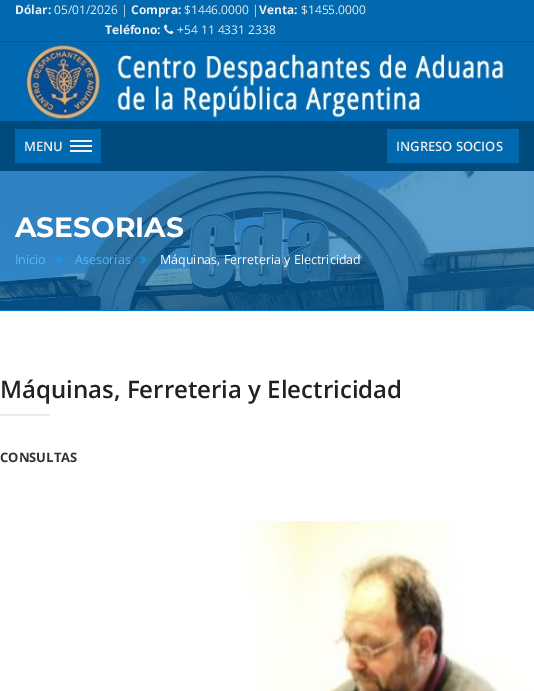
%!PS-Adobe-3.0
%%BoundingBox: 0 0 534 691
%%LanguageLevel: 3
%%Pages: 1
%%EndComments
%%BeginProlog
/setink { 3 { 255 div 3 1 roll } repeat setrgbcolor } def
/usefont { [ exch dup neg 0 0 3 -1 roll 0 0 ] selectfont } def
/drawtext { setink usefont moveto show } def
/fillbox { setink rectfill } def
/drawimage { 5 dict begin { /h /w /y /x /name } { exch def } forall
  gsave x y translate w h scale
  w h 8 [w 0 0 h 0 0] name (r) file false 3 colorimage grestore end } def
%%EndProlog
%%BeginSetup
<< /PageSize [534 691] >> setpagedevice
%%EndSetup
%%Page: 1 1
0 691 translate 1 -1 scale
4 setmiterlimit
0 0 534 691 255 255 255 fillbox
0 0 534 121 0 105 176 fillbox
0 41 534 1 0 90 151 fillbox
(Dólar:) 15 14 /OpenSans-Bold 12 238 238 238 drawtext
(05/01/2026 |) 54 14 /OpenSans-Regular 12 238 238 238 drawtext
(Compra:) 131 14 /OpenSans-Bold 12 238 238 238 drawtext
($1446.0000 |) 184 14 /OpenSans-Regular 12 238 238 238 drawtext
(Venta:) 259 14 /OpenSans-Bold 12 238 238 238 drawtext
($1455.0000) 301 14 /OpenSans-Regular 12 238 238 238 drawtext
(Teléfono:) 105 34 /OpenSans-Bold 12 238 238 238 drawtext
(assets/img1.rgb) 164 24 10 10 drawimage
(+54 11 4331 2338) 177 34 /OpenSans-Regular 12 238 238 238 drawtext
(assets/img2.rgb) 15 42 490 79 drawimage
0 121 534 50 0 75 125 fillbox
15 129 86 34 0 105 176 fillbox
(MENU) 24 151 /OpenSans-SemiBold 13 238 238 238 drawtext
70 140 22 2 241 241 241 fillbox
70 145 22 2 241 241 241 fillbox
70 150 22 2 241 241 241 fillbox
387 129 132 34 0 105 176 fillbox
(INGRESO SOCIOS) 396 151 /OpenSans-SemiBold 13 238 238 238 drawtext
(assets/img3.rgb) 0 171 534 139 drawimage
0 310 534 1 0 120 202 fillbox
(ASESORIAS) 15 237 /Montserrat-Bold 28 255 255 255 drawtext
(Inicio) 15 264 /OpenSans-Regular 12.5 84 186 255 drawtext
(assets/img4.rgb) 55 256 7 8 drawimage
(Asesorias) 75 264 /OpenSans-Regular 12.5 84 186 255 drawtext
(assets/img5.rgb) 140 256 7 8 drawimage
(Máquinas, Ferreteria y Electricidad) 160 264 /OpenSans-Regular 12.5 255 255 255 drawtext
0 311 534 1 240 240 240 fillbox
(Máquinas, Ferreteria y Electricidad) 0 398 /OpenSans-SemiBold 24 34 34 34 drawtext
0 414 50 2 234 234 234 fillbox
(CONSULTAS) 0 462 /OpenSans-Bold 13 50 50 50 drawtext
(assets/img6.rgb) 0 521 534 170 drawimage
showpage
%%EOF
